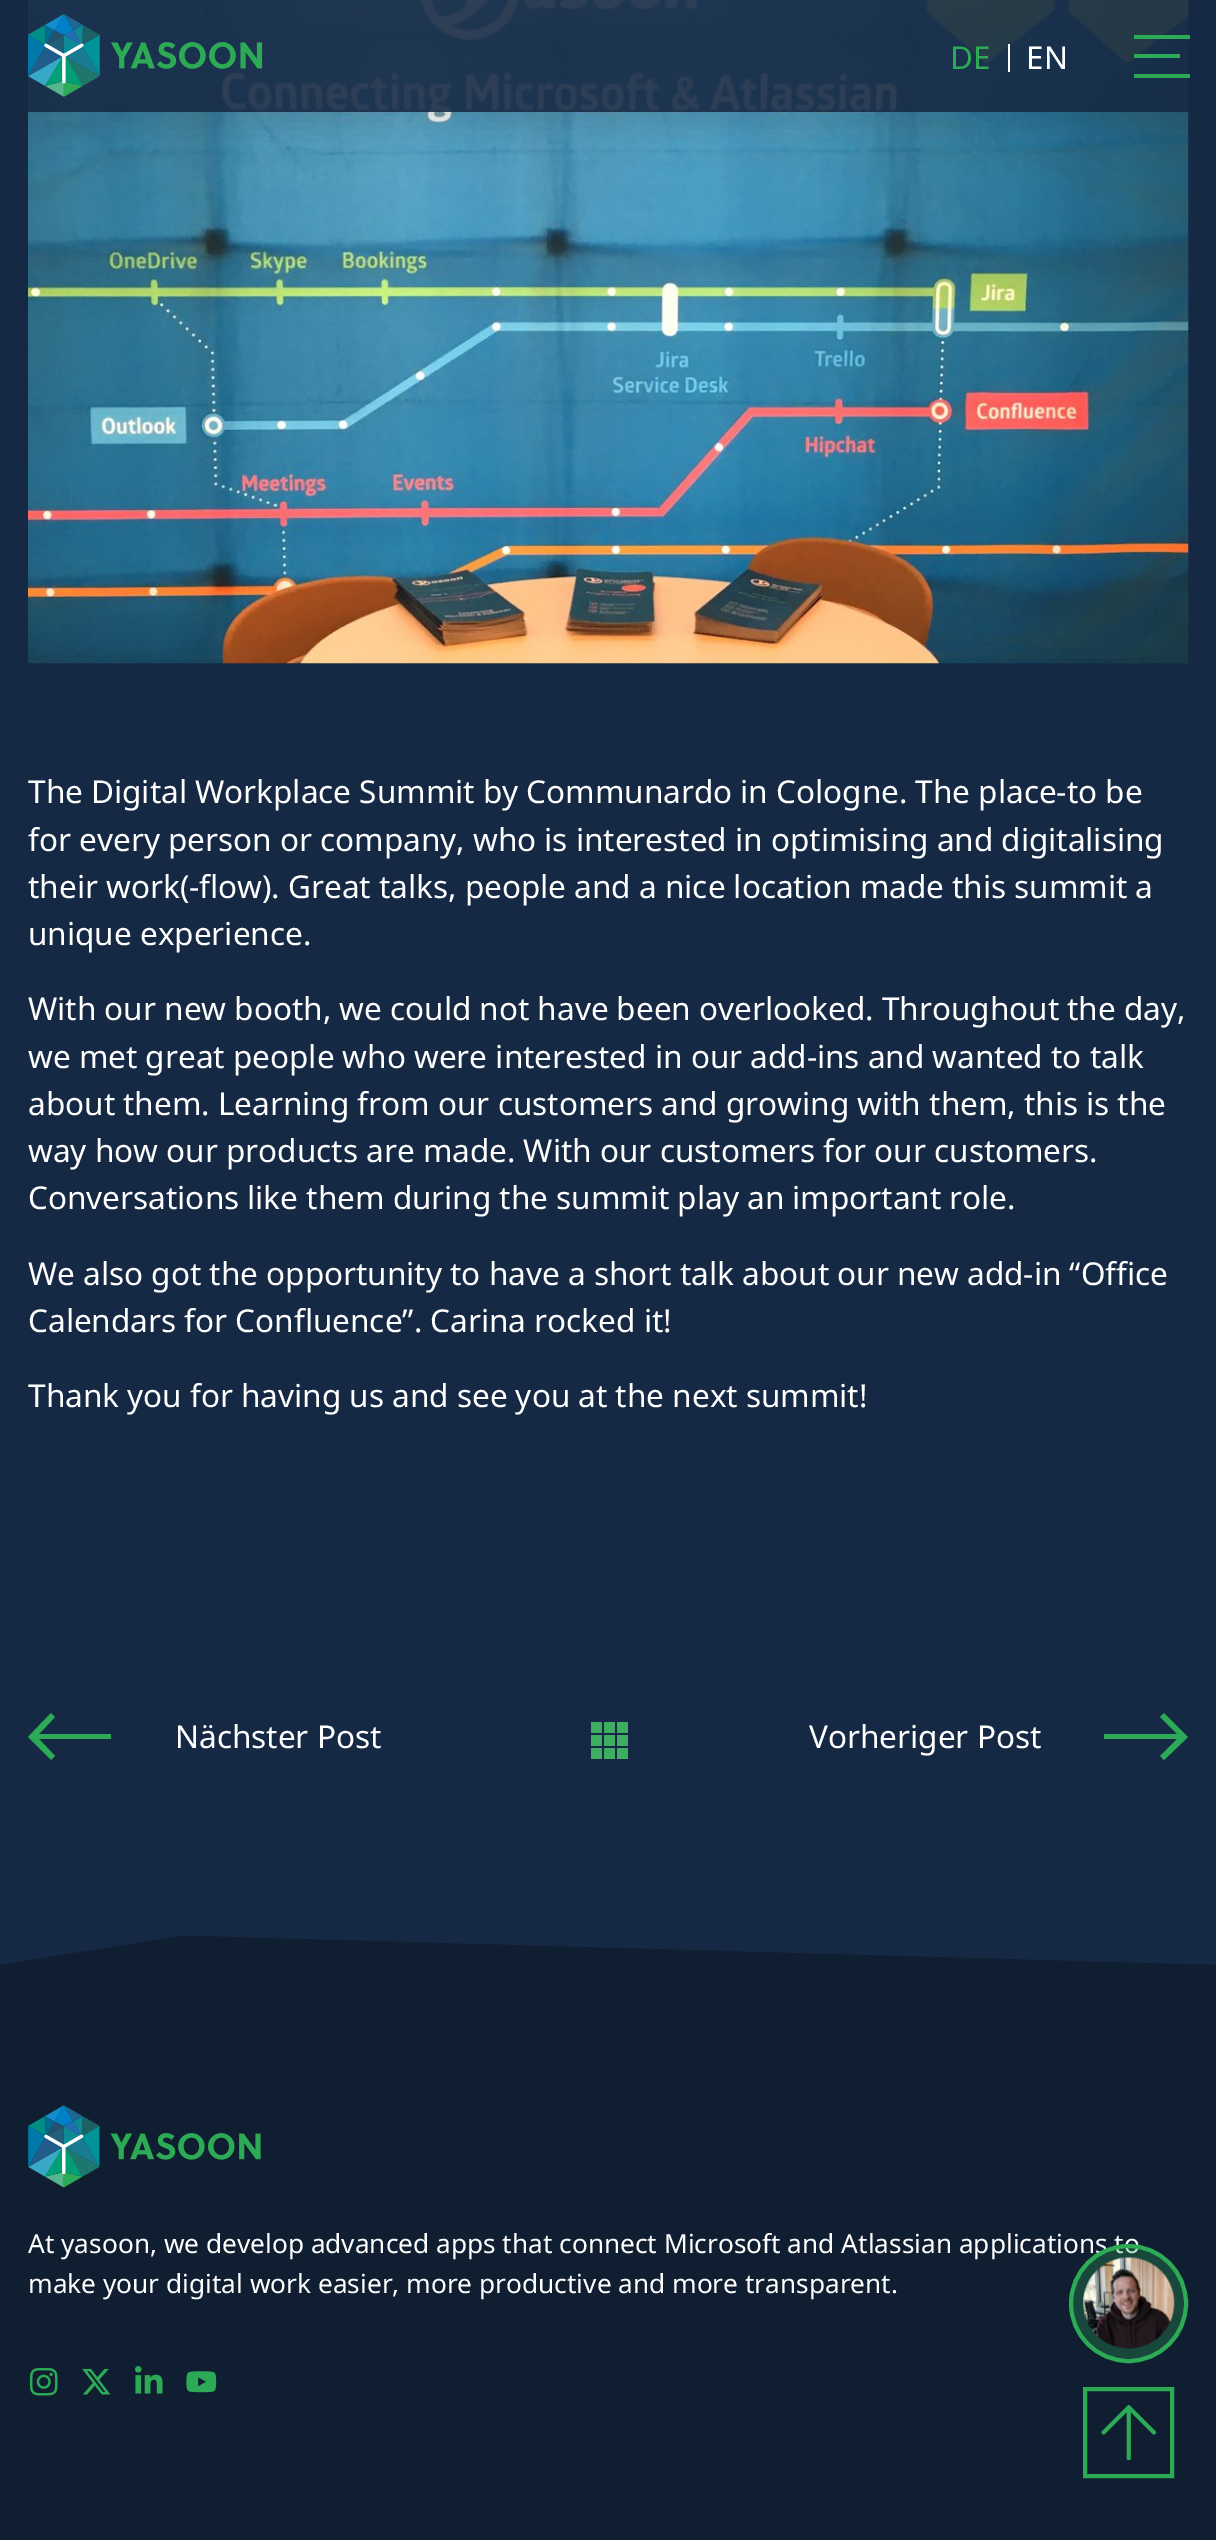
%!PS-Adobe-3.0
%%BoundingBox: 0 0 1216 2540
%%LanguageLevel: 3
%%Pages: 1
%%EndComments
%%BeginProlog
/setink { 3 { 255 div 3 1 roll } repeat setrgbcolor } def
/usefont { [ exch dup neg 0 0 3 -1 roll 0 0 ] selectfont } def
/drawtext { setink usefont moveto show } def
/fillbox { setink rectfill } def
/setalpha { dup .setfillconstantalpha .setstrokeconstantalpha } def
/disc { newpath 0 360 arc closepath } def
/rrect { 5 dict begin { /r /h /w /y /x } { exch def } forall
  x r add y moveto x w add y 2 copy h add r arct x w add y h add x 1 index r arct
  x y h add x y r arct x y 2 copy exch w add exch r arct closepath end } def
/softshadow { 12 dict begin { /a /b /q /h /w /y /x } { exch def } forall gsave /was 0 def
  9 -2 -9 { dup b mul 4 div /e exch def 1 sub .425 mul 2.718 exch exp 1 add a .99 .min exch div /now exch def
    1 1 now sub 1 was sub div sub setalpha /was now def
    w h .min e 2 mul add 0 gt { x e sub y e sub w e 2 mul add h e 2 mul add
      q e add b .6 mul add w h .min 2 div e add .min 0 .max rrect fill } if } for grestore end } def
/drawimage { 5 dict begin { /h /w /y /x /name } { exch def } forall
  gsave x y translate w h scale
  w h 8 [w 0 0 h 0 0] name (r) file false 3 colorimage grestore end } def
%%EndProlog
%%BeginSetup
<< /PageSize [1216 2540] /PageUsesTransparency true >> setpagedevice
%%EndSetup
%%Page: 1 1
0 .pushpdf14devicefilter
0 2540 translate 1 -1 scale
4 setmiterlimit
0 0 1216 2540 22 41 68 fillbox
(assets/img2.rgb) 28 0 1161 664 drawimage
gsave
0 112 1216 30 rectclip
16 30 49 setink
0 14 1216 112 0 14 0.15 softshadow
grestore
0.9 setalpha
28 0 1161 112 22 41 68 fillbox
1 setalpha
(assets/img1.rgb) 28 14 235 83 drawimage
(DE) 950 69 /NotoSans-Regular 31.5 44 170 86 drawtext
1008 44 2 28 255 255 255 fillbox
(EN) 1026 69 /NotoSans-Regular 31.5 255 255 255 drawtext
1134 35 56 4 44 170 86 fillbox
1134 54 46 4 44 170 86 fillbox
1134 74 56 4 44 170 86 fillbox
(The Digital Workplace Summit by Communardo in Cologne. The place-to be) 28 803 /NotoSans-Regular 31.5 255 255 255 drawtext
(for every person or company, who is interested in optimising and digitalising) 28 851 /NotoSans-Regular 31.5 255 255 255 drawtext
(their work\(-flow\). Great talks, people and a nice location made this summit a) 28 898 /NotoSans-Regular 31.5 255 255 255 drawtext
(unique experience.) 28 945 /NotoSans-Regular 31.5 255 255 255 drawtext
(With our new booth, we could not have been overlooked. Throughout the day,) 28 1020 /NotoSans-Regular 31.5 255 255 255 drawtext
(we met great people who were interested in our add-ins and wanted to talk) 28 1068 /NotoSans-Regular 31.5 255 255 255 drawtext
(about them. Learning from our customers and growing with them, this is the) 28 1115 /NotoSans-Regular 31.5 255 255 255 drawtext
(way how our products are made. With our customers for our customers.) 28 1162 /NotoSans-Regular 31.5 255 255 255 drawtext
(Conversations like them during the summit play an important role.) 28 1209 /NotoSans-Regular 31.5 255 255 255 drawtext
(We also got the opportunity to have a short talk about our new add-in “Office) 28 1285 /NotoSans-Regular 31.5 255 255 255 drawtext
(Calendars for Confluence”. Carina rocked it!) 28 1332 /NotoSans-Regular 31.5 255 255 255 drawtext
(Thank you for having us and see you at the next summit!) 28 1407 /NotoSans-Regular 31.5 255 255 255 drawtext
45 170 87 setink
51 1760 moveto 55 1756 lineto 39 1739 lineto 111 1739 lineto 111 1734 lineto 39 1734 lineto 55 1717 lineto 51 1713 lineto 28 1737 lineto closepath fill
(Nächster Post) 175 1748 /NotoSans-Regular 31.5 255 255 255 drawtext
(assets/img3.rgb) 591 1722 37 37 drawimage
(Vorheriger Post) 809 1748 /NotoSans-Regular 31.5 255 255 255 drawtext
45 170 87 setink
1164 1713 moveto 1160 1717 lineto 1177 1734 lineto 1104 1734 lineto 1104 1739 lineto 1177 1739 lineto 1160 1756 lineto 1164 1760 lineto 1188 1737 lineto closepath fill
16 30 49 setink
0 1965 moveto 0 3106 lineto 1216 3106 lineto 1216 1965 lineto 195 1936 lineto 180 1936 lineto closepath fill
(assets/img4.rgb) 28 2105 233 83 drawimage
(At yasoon, we develop advanced apps that connect Microsoft and Atlassian applications to) 28 2253 /NotoSans-Regular 26.25 255 255 255 drawtext
(make your digital work easier, more productive and more transparent.) 28 2293 /NotoSans-Regular 26.25 255 255 255 drawtext
(assets/img5.rgb) 29 2367 29 29 drawimage
(assets/img6.rgb) 82 2368 29 27 drawimage
(assets/img7.rgb) 135 2366 28 28 drawimage
(assets/img8.rgb) 186 2371 31 22 drawimage
44 170 86 setink
4 setlinewidth
1085 2389 87 87 rectstroke
(assets/img9.rgb) 1101 2405 56 56 drawimage
0.3 setalpha
1129 2303 56 disc fill
1 setalpha
(assets/img10.rgb) 1083 2257 92 92 drawimage
1128.5 2303.5 57.5 disc stroke
.poppdf14devicefilter showpage
%%EOF
